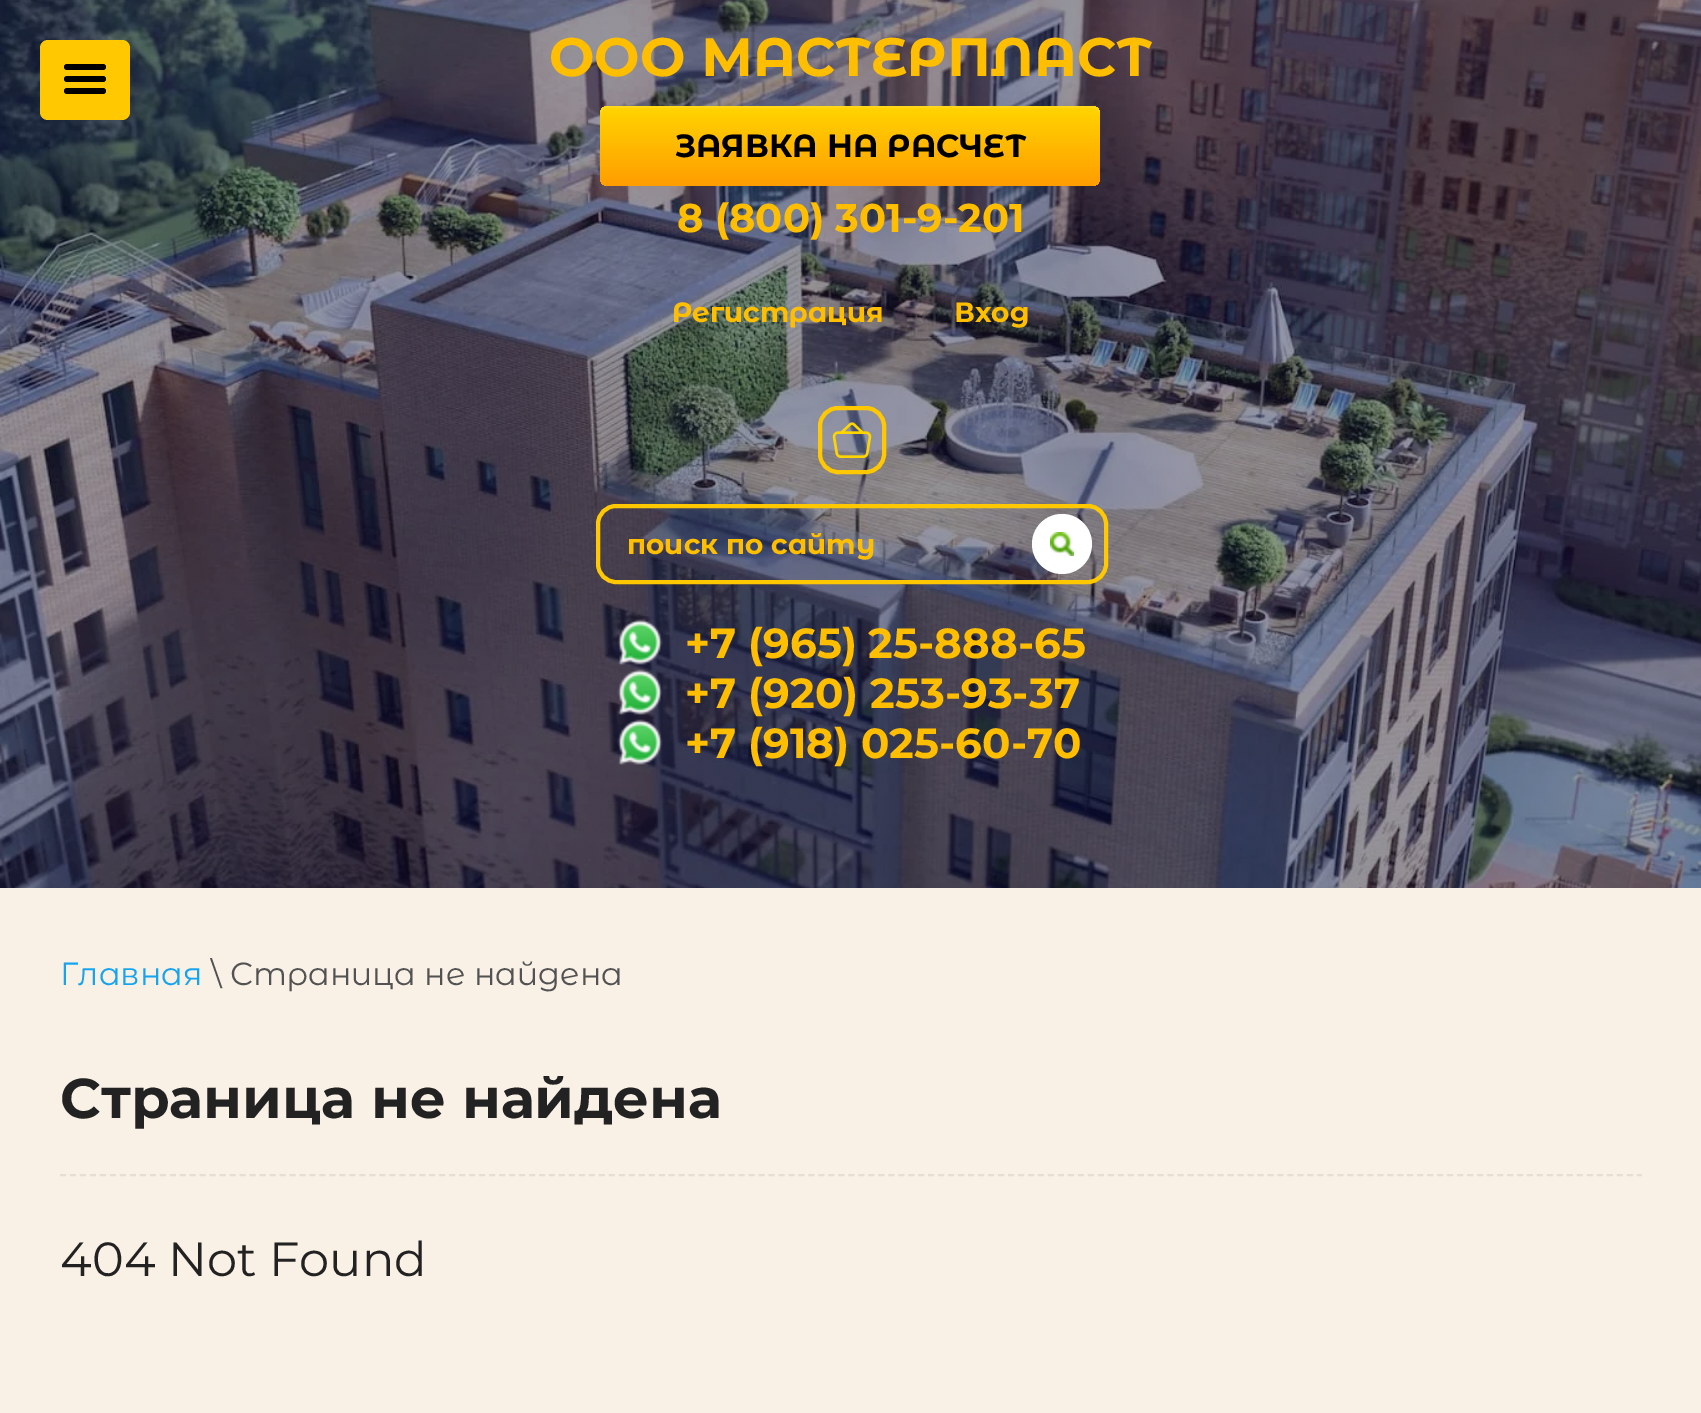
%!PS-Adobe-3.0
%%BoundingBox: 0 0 1701 1413
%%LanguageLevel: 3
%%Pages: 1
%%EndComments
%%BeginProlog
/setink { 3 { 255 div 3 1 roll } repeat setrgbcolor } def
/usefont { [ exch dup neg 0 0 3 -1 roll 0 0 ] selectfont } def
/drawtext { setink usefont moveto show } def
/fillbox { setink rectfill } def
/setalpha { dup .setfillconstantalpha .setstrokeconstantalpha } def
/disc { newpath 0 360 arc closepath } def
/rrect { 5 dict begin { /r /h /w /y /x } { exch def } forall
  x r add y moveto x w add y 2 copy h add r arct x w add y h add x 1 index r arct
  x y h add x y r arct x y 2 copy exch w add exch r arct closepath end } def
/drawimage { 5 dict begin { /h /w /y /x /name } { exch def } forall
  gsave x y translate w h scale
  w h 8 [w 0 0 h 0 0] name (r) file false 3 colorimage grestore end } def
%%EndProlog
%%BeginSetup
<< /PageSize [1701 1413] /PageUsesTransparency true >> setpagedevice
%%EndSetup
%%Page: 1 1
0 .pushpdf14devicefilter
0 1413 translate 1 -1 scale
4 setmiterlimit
0 0 1701 1413 250 241 230 fillbox
(assets/img1.rgb) 0 0 1701 888 drawimage
255 200 0 setink
40 40 90 80 8 rrect fill
0 0 0 setink
64 64 42 6 3 rrect fill
64 76 42 6 3 rrect fill
64 88 42 6 3 rrect fill
(ООО МАСТЕРПЛАСТ) 549 76 /MontserratAlternates-Bold 54 255 190 0 drawtext
gsave 600 106 500 80 8 rrect clip newpath
<< /ShadingType 2 /ColorSpace /DeviceRGB /Coords [850 106 850 186] /Extend [true true] /Function << /FunctionType 2 /Domain [0 1] /C0 [1 0.835 0] /C1 [1 0.616 0] /N 1 >> >> shfill grestore
0.1 setalpha
255 255 255 setink
608 108 moveto 1092 108 lineto 1096 108 1100 112 1100 116 curveto 1100 114 lineto 1100 110 1096 106 1092 106 curveto 608 106 lineto 604 106 600 110 600 114 curveto 600 116 lineto 600 112 604 108 608 108 curveto closepath fill
1 setalpha
(ЗАЯВКА НА РАСЧЕТ) 675 157 /MontserratAlternates-Bold 32 0 0 0 drawtext
(8 \(800\) 301-9-201) 677 232 /MontserratAlternates-Bold 40 255 190 0 drawtext
(Регистрация) 672 322 /MontserratAlternates-Bold 28 255 190 0 drawtext
(Вход) 954 322 /MontserratAlternates-Bold 28 255 190 0 drawtext
255 200 0 setink
4 setlinewidth
820 408 64 64 18 rrect stroke
(assets/img2.rgb) 832 422 40 36 drawimage
598 506 508 76 18 rrect stroke
(поиск по сайту) 627 554 /MontserratAlternates-Bold 28 255 190 0 drawtext
255 255 255 setink
1062 544 30 disc fill
(assets/img3.rgb) 1050 532 24 24 drawimage
(assets/img4.rgb) 617 619 46 46 drawimage
(+7 \(965\) 25-888-65) 685 658 /MontserratAlternates-Bold 42 255 190 0 drawtext
(assets/img5.rgb) 617 669 46 46 drawimage
(+7 \(920\) 253-93-37) 685 708 /MontserratAlternates-Bold 42 255 190 0 drawtext
(assets/img6.rgb) 617 719 46 46 drawimage
(+7 \(918\) 025-60-70) 685 758 /MontserratAlternates-Bold 42 255 190 0 drawtext
(Главная) 60 985 /MontserratAlternates-Regular 32 22 164 240 drawtext
(\\ Страница не найдена) 211 985 /MontserratAlternates-Regular 32 82 82 82 drawtext
230 222 212 setink
2 setlinewidth
[6 3.98] 0 setdash
60 1175 moveto 1642 1175 lineto stroke
(Страница не найдена) 60 1118 /Montserrat-Bold 56 34 34 34 drawtext
(404 Not Found) 60 1276 /Montserrat-Regular 48 34 34 34 drawtext
.poppdf14devicefilter showpage
%%EOF
